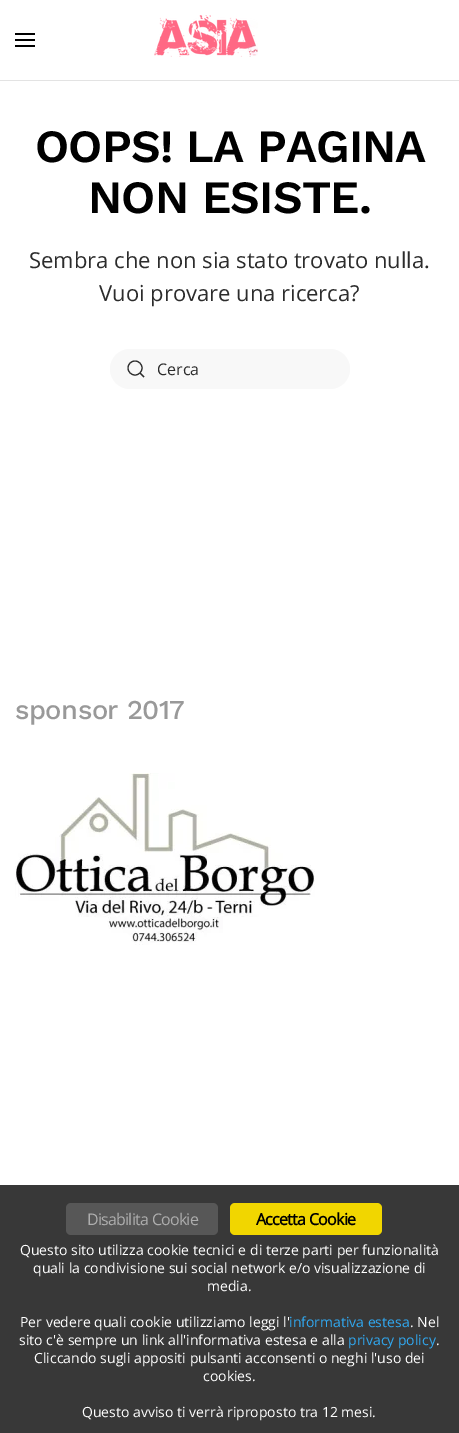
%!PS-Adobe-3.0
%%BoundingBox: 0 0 459 1433
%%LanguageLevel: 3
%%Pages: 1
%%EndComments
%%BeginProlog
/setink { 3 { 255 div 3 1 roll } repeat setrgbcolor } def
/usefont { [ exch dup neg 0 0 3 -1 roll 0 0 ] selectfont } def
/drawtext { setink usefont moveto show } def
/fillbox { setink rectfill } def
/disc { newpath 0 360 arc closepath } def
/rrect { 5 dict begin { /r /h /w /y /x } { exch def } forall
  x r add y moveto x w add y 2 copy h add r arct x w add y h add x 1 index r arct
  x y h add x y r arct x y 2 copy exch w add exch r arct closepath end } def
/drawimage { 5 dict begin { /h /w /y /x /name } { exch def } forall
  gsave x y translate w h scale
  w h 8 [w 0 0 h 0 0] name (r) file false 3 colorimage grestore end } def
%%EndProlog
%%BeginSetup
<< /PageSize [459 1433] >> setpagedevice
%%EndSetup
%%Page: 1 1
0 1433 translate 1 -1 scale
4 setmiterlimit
0 0 459 1433 255 255 255 fillbox
0 80 459 1 227 227 227 fillbox
15 33 20 2 0 0 0 fillbox
15 39 20 2 0 0 0 fillbox
15 45 20 2 0 0 0 fillbox
(assets/img1.rgb) 154 15 104 42 drawimage
/WorkSans-SemiBold 46.25 usefont
35 162 moveto -0.8 0 (OOPS! LA PAGINA) ashow
88 213 moveto -0.8 0 (NON ESISTE.) ashow
(Sembra che non sia stato trovato nulla.) 29 268 /OpenSans-Regular 22 44 44 44 drawtext
(Vuoi provare una ricerca?) 99 301 /OpenSans-Regular 22 44 44 44 drawtext
248 248 248 setink
110 349 240 40 20 rrect fill
44 44 44 setink
1.1 setlinewidth
135 368 7 disc stroke
140 373 moveto 144 377 lineto closepath stroke
(Cerca) 157 375 /OpenSans-Regular 16 44 44 44 drawtext
/WorkSans-Medium 27.25 usefont
153 153 153 setink
15 719 moveto -0.5 0 (sponsor 2017) ashow
(assets/img2.rgb) 15 773 300 172 drawimage
0 1185 459 248 56 56 56 fillbox
87 87 87 setink
66 1203 152 32 5 rrect fill
/OpenSans-Regular 16 usefont
174 174 174 setink
87 1225 moveto -0.75 0 (Disabilita Cookie) ashow
241 214 0 setink
230 1203 152 32 5 rrect fill
/OpenSans-Bold 16 usefont
0 0 0 setink
256 1225 moveto -0.75 0 (Accetta Cookie) ashow
(Questo sito utilizza cookie tecnici e di terze parti per funzionalità) 20 1255 /OpenSans-Regular 14 255 255 255 drawtext
(quali la condivisione sui social network e/o visualizzazione di) 33 1273 /OpenSans-Regular 14 255 255 255 drawtext
(media.) 207 1291 /OpenSans-Regular 14 255 255 255 drawtext
(Per vedere quali cookie utilizziamo leggi l') 20 1327 /OpenSans-Regular 14 255 255 255 drawtext
(informativa estesa) 289 1327 /OpenSans-Regular 14 49 168 240 drawtext
(. Nel) 410 1327 /OpenSans-Regular 14 255 255 255 drawtext
(sito c'è sempre un link all'informativa estesa e alla) 19 1345 /OpenSans-Regular 14 255 255 255 drawtext
(privacy policy) 348 1345 /OpenSans-Regular 14 49 168 240 drawtext
(.) 436 1345 /OpenSans-Regular 14 255 255 255 drawtext
(Cliccando sugli appositi pulsanti acconsenti o neghi l'uso dei) 34 1363 /OpenSans-Regular 14 255 255 255 drawtext
(cookies.) 203 1381 /OpenSans-Regular 14 255 255 255 drawtext
(Questo avviso ti verrà riproposto tra 12 mesi.) 82 1417 /OpenSans-Regular 14 255 255 255 drawtext
showpage
%%EOF
